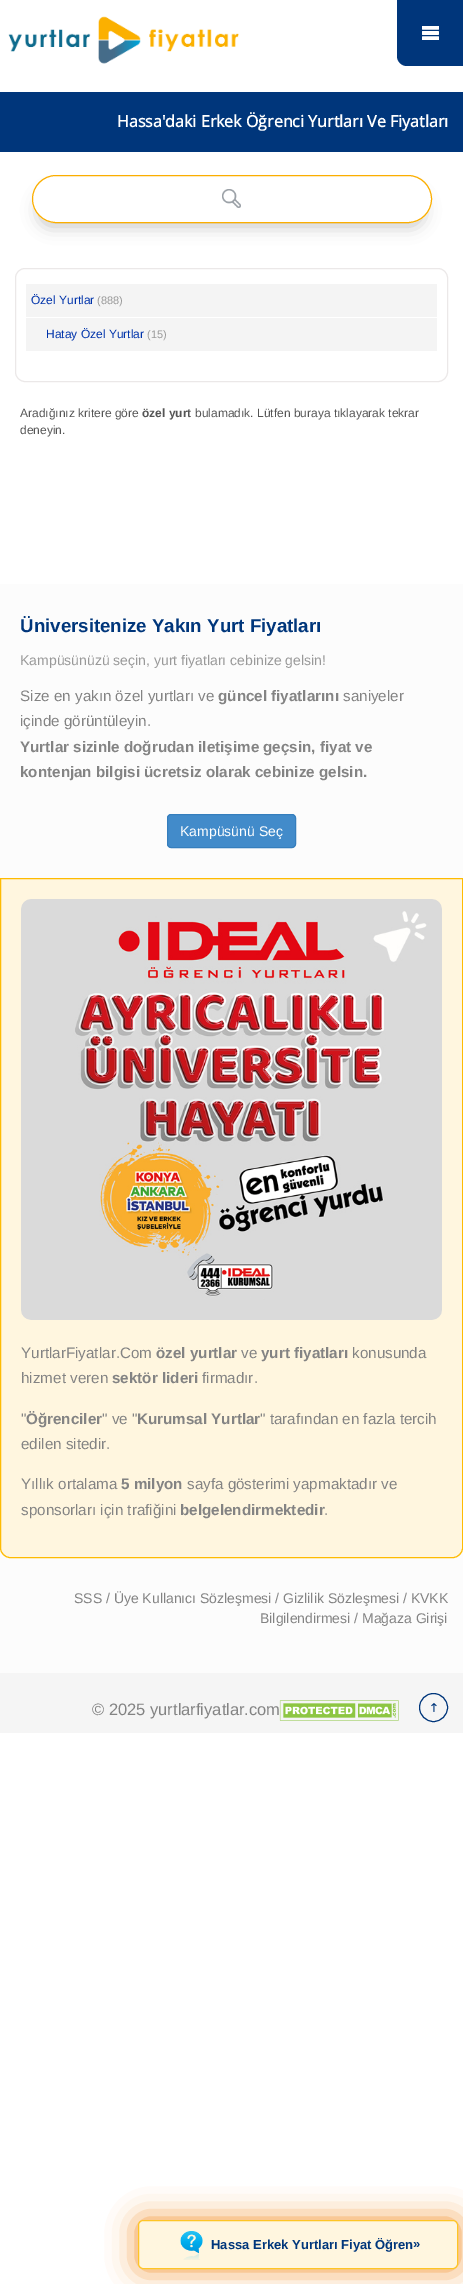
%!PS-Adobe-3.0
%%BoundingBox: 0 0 463 2284
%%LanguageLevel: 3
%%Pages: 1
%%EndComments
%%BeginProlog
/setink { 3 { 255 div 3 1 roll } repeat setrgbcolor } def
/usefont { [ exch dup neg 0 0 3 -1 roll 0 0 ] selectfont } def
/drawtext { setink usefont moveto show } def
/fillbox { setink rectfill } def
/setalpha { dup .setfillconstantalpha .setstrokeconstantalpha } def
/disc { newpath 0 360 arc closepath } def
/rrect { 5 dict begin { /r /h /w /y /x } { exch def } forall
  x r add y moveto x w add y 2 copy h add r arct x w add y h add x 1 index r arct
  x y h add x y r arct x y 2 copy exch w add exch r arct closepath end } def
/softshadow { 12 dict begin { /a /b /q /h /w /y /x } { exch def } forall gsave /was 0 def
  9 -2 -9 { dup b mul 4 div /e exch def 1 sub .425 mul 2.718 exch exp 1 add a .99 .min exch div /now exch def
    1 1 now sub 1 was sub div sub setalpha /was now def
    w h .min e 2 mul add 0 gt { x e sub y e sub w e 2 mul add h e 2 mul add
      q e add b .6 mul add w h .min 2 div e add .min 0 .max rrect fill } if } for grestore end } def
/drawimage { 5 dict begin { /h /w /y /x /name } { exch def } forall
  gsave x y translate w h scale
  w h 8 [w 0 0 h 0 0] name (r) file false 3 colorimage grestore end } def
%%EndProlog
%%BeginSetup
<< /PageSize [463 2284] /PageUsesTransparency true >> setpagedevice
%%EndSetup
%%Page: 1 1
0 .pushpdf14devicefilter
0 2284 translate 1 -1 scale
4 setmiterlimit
0 0 463 2284 255 255 255 fillbox
0 54 123 setink
397 0 moveto 463 0 lineto 463 66 lineto 407 66 lineto 401.5 66 397 61.5 397 56 curveto closepath fill
(assets/img1.rgb) 422 26 17 14 drawimage
0 92 463 60 0 54 123 fillbox
(Hassa'daki Erkek Öğrenci Yurtları Ve Fiyatları) 117 127 /OpenSans-Bold 16 255 255 255 drawtext
0 0 0 setink
39 194 384 32 16 8.5 0.23 softshadow
255 255 255 setink
32 175 400 48 24 rrect fill
(assets/img2.rgb) 222 189 19 19 drawimage
251 174 0 setink
32.5 175.5 399 47 23.5 rrect stroke
235 232 232 setink
15.5 268.5 432 113 9.5 rrect stroke
26 284 411 33 244 244 244 fillbox
(Özel Yurtlar) 31 304 /LiberationSans-Regular 12 0 51 170 drawtext
(\(888\)) 97 304 /LiberationSans-Regular 11 153 153 153 drawtext
26 318 411 33 244 244 244 fillbox
(Hatay Özel Yurtlar) 46 338 /LiberationSans-Regular 12 0 51 170 drawtext
(\(15\)) 147 338 /LiberationSans-Regular 11 153 153 153 drawtext
(Aradığınız kritere göre) 20 417 /LiberationSans-Regular 12 85 85 85 drawtext
(özel yurt) 142 417 /LiberationSans-Bold 12 85 85 85 drawtext
(bulamadık. Lütfen buraya tıklayarak tekrar) 195 417 /LiberationSans-Regular 12 85 85 85 drawtext
(deneyin.) 20 434 /LiberationSans-Regular 12 85 85 85 drawtext
240 124 0 setink
138 2220 320 49 5 15 0.82 softshadow
255 246 223 setink
138.5 2220.5 319 48 4.5 rrect gsave fill grestore
254 197 37 setink
stroke
(assets/img3.rgb) 180 2231 23 29 drawimage
(Hassa Erkek Yurtları Fiyat Öğren) 211 2249 /LiberationSans-Bold 13 0 54 123 drawtext
(») 413 2248 /LiberationSans-Bold 13 0 54 123 drawtext
0 584 463 1089 252 252 252 fillbox
(Üniversitenize Yakın Yurt Fiyatları) 20 632 /LiberationSans-Bold 18.7 0 54 123 drawtext
(Kampüsünüzü seçin, yurt fiyatları cebinize gelsin!) 20 665 /LiberationSans-Regular 14 153 153 153 drawtext
(Size en yakın özel yurtları ve) 20 701 /LiberationSans-Regular 15.2 131 131 131 drawtext
(güncel fiyatlarını) 218 701 /LiberationSans-Bold 15.2 131 131 131 drawtext
(saniyeler) 343 701 /LiberationSans-Regular 15.2 131 131 131 drawtext
(içinde görüntüleyin.) 20 726 /LiberationSans-Regular 15.2 131 131 131 drawtext
(Yurtlar sizinle doğrudan iletişime geçsin, fiyat ve) 20 752 /LiberationSans-Bold 15.2 131 131 131 drawtext
(kontenjan bilgisi ücretsiz olarak cebinize gelsin.) 20 777 /LiberationSans-Bold 15.2 131 131 131 drawtext
66 139 202 setink
167.5 814.5 128 33 3.5 rrect gsave fill grestore
53 126 189 setink
stroke
(Kampüsünü Seç) 180 836 /LiberationSans-Regular 14 255 255 255 drawtext
255 246 223 setink
0.5 878.5 moveto 462.5 878.5 lineto 462.5 1548 lineto 462.5 1553 458 1557.5 453 1557.5 curveto 10 1557.5 lineto 5 1557.5 0.5 1553 0.5 1548 curveto closepath gsave fill grestore
254 187 2 setink
stroke
(assets/img4.rgb) 21 899 421 421 drawimage
(YurtlarFiyatlar.Com) 21 1358 /LiberationSans-Regular 15.2 131 131 131 drawtext
(özel yurtlar) 156 1358 /LiberationSans-Bold 15.2 131 131 131 drawtext
(ve) 241 1358 /LiberationSans-Regular 15.2 131 131 131 drawtext
(yurt fiyatları) 261 1358 /LiberationSans-Bold 15.2 131 131 131 drawtext
(konusunda) 352 1358 /LiberationSans-Regular 15.2 131 131 131 drawtext
(hizmet veren) 21 1383 /LiberationSans-Regular 15.2 131 131 131 drawtext
(sektör lideri) 112 1383 /LiberationSans-Bold 15.2 131 131 131 drawtext
(firmadır.) 202 1383 /LiberationSans-Regular 15.2 131 131 131 drawtext
(") 21 1424 /LiberationSans-Regular 15.2 131 131 131 drawtext
(Öğrenciler) 26 1424 /LiberationSans-Bold 15.2 131 131 131 drawtext
(" ve ") 102 1424 /LiberationSans-Regular 15.2 131 131 131 drawtext
(Kurumsal Yurtlar) 137 1424 /LiberationSans-Bold 15.2 131 131 131 drawtext
(" tarafından en fazla tercih) 260 1424 /LiberationSans-Regular 15.2 131 131 131 drawtext
(edilen sitedir.) 21 1449 /LiberationSans-Regular 15.2 131 131 131 drawtext
(Yıllık ortalama) 21 1489 /LiberationSans-Regular 15.2 131 131 131 drawtext
(5 milyon) 121 1489 /LiberationSans-Bold 15.2 131 131 131 drawtext
(sayfa gösterimi yapmaktadır ve) 187 1489 /LiberationSans-Regular 15.2 131 131 131 drawtext
(sponsorları için trafiğini) 21 1515 /LiberationSans-Regular 15.2 131 131 131 drawtext
(belgelendirmektedir) 180 1515 /LiberationSans-Bold 15.2 131 131 131 drawtext
(.) 324 1515 /LiberationSans-Regular 15.2 131 131 131 drawtext
(SSS / Üye Kullanıcı Sözleşmesi / Gizlilik Sözleşmesi / KVKK) 74 1603 /LiberationSans-Regular 14 131 131 131 drawtext
(Bilgilendirmesi / Mağaza Girişi) 260 1623 /LiberationSans-Regular 14 131 131 131 drawtext
0 1673 463 60 245 245 245 fillbox
(assets/img5.rgb) 8 16 231 48 drawimage
(© 2025 yurtlarfiyatlar.com) 92 1715 /LiberationSans-Regular 16.5 131 131 131 drawtext
(assets/img6.rgb) 279 1700 120 21 drawimage
0 54 123 setink
433.5 1707.5 14 disc stroke
(assets/img7.rgb) 431 1703 6 9 drawimage
.poppdf14devicefilter showpage
%%EOF
